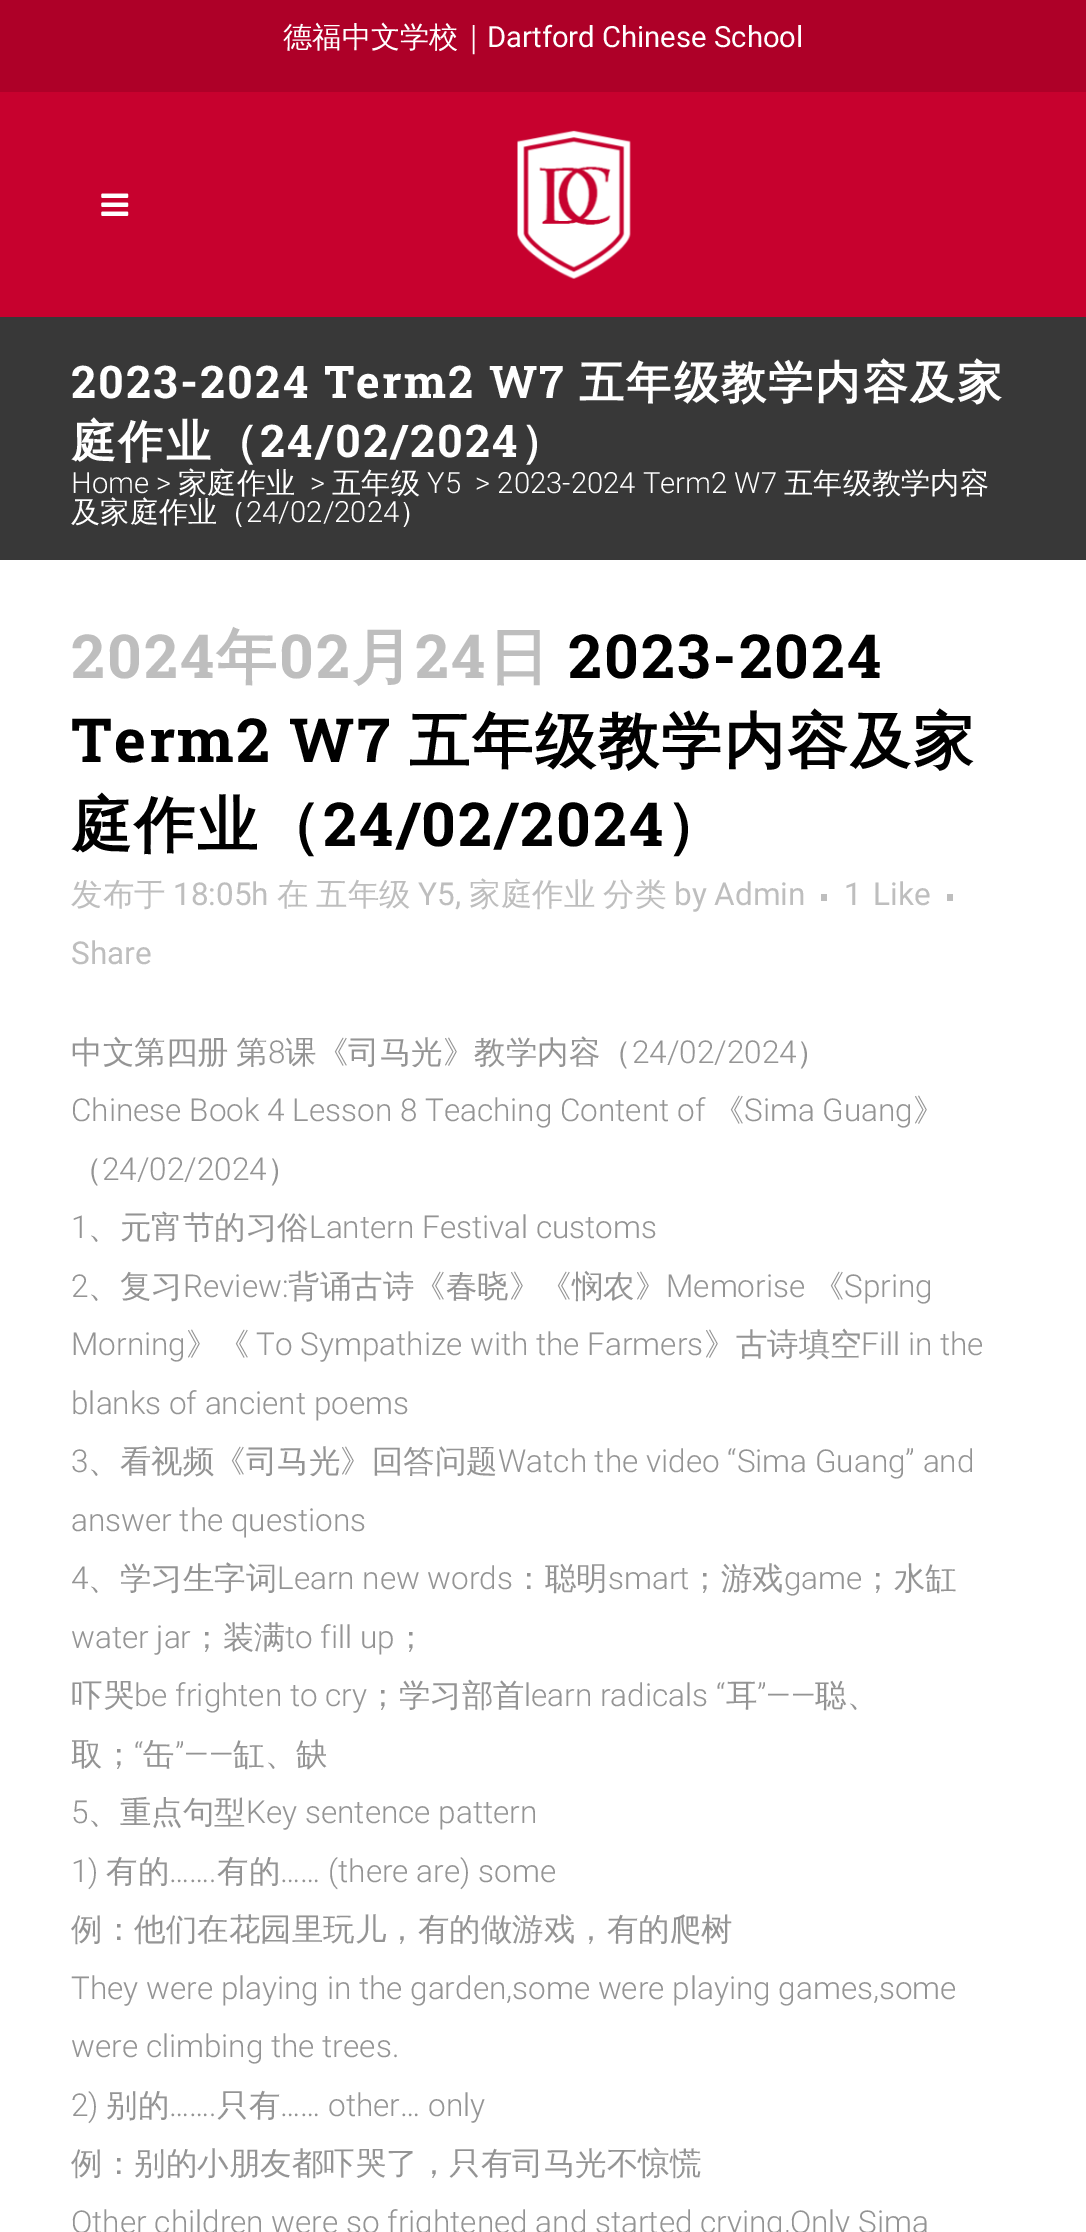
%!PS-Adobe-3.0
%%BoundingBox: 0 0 1086 2232
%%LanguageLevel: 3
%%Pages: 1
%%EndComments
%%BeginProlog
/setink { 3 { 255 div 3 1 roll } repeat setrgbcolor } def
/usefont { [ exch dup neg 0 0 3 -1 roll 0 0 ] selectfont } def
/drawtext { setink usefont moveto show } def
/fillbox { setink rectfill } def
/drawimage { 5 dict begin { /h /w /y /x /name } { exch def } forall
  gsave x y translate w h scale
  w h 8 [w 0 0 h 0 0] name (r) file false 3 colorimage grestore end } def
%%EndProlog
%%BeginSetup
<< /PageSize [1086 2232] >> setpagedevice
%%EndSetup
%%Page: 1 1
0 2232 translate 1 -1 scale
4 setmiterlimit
0 0 1086 2232 255 255 255 fillbox
0 0 1086 92 174 0 40 fillbox
(德福中文学校｜) 283 47 /WenQuanYiZenHei-Medium 29.25 255 255 255 drawtext
(Dartford Chinese School) 487 47 /Roboto-Regular 29.25 255 255 255 drawtext
0 92 1086 225 199 1 46 fillbox
(assets/img1.rgb) 101 193 28 23 drawimage
(assets/img2.rgb) 517 130 114 149 drawimage
0 317 1086 243 56 56 56 fillbox
/RobotoSlab-Bold 45 usefont
255 255 255 setink
71 398 moveto 2.25 0 (2023-2024 Term2 W7) ashow
/WenQuanYiZenHei-Bold 45 usefont
579 398 moveto 2.25 0 (五年级教学内容及家) ashow
71 457 moveto 2.25 0 (庭作业（) ashow
/RobotoSlab-Bold 45 usefont
260 457 moveto 2.25 0 (24/02/2024) ashow
/WenQuanYiZenHei-Bold 45 usefont
520 457 moveto 2.25 0 (）) ashow
(Home >) 71 493 /Roboto-Light 29.25 255 255 255 drawtext
(家庭作业) 178 493 /WenQuanYiZenHei-Medium 29.25 255 255 255 drawtext
(>) 310 493 /Roboto-Light 29.25 255 255 255 drawtext
(五年级) 332 493 /WenQuanYiZenHei-Medium 29.25 255 255 255 drawtext
(Y5) 427 493 /Roboto-Light 29.25 255 255 255 drawtext
(> 2023-2024 Term2 W7) 475 493 /Roboto-Light 29.25 255 255 255 drawtext
(五年级教学内容) 784 493 /WenQuanYiZenHei-Medium 29.25 255 255 255 drawtext
(及家庭作业（) 71 522 /WenQuanYiZenHei-Medium 29.25 255 255 255 drawtext
(24/02/2024) 246 522 /Roboto-Light 29.25 255 255 255 drawtext
(）) 399 522 /WenQuanYiZenHei-Medium 29.25 255 255 255 drawtext
/RobotoSlab-Bold 60.75 usefont
190 190 190 setink
71 678 moveto 2.25 0 (2024) ashow
/WenQuanYiZenHei-Bold 60.75 usefont
216 678 moveto 2.25 0 (年) ashow
/RobotoSlab-Bold 60.75 usefont
279 678 moveto 2.25 0 (02) ashow
/WenQuanYiZenHei-Bold 60.75 usefont
352 678 moveto 2.25 0 (月) ashow
/RobotoSlab-Bold 60.75 usefont
415 678 moveto 2.25 0 (24) ashow
/WenQuanYiZenHei-Bold 60.75 usefont
488 678 moveto 2.25 0 (日) ashow
/RobotoSlab-Bold 60.75 usefont
0 0 0 setink
568 678 moveto 2.25 0 (2023-2024) ashow
71 762 moveto 2.25 0 (Term2 W7) ashow
/WenQuanYiZenHei-Bold 60.75 usefont
409 762 moveto 2.25 0 (五年级教学内容及家) ashow
71 846 moveto 2.25 0 (庭作业（) ashow
/RobotoSlab-Bold 60.75 usefont
323 846 moveto 2.25 0 (24/02/2024) ashow
/WenQuanYiZenHei-Bold 60.75 usefont
665 846 moveto 2.25 0 (）) ashow
(发布于) 71 905 /WenQuanYiZenHei-Medium 31.5 190 190 190 drawtext
(18:05h) 173 905 /Roboto-Regular 31.5 190 190 190 drawtext
(在) 277 905 /WenQuanYiZenHei-Medium 31.5 190 190 190 drawtext
(五年级) 316 905 /WenQuanYiZenHei-Medium 31.5 190 190 190 drawtext
(Y5,) 418 905 /Roboto-Regular 31.5 190 190 190 drawtext
(家庭作业) 469 905 /WenQuanYiZenHei-Medium 31.5 190 190 190 drawtext
(分类) 603 905 /WenQuanYiZenHei-Medium 31.5 190 190 190 drawtext
(by Admin) 674 905 /Roboto-Regular 31.5 190 190 190 drawtext
821 894 6 7 190 190 190 fillbox
(1) 844 905 /Roboto-Regular 31.5 190 190 190 drawtext
(Like) 873 905 /Roboto-Regular 31.5 190 190 190 drawtext
947 894 6 7 190 190 190 fillbox
(Share) 71 964 /Roboto-Regular 31.5 190 190 190 drawtext
/WenQuanYiZenHei-Medium 31.5 usefont
148 148 148 setink
71 1063 moveto -2 0 32 (中文第四册 第) widthshow
(8) 268 1063 /Roboto-Light 31.5 148 148 148 drawtext
(课《司马光》教学内容（) 285 1063 /WenQuanYiZenHei-Medium 31.5 148 148 148 drawtext
(24/02/2024) 632 1063 /Roboto-Light 31.5 148 148 148 drawtext
(）) 796 1063 /WenQuanYiZenHei-Medium 31.5 148 148 148 drawtext
(Chinese Book 4 Lesson 8 Teaching Content of) 71 1121 /Roboto-Light 31.5 148 148 148 drawtext
(《) 713 1121 /WenQuanYiZenHei-Medium 31.5 148 148 148 drawtext
(Sima Guang) 744 1121 /Roboto-Light 31.5 148 148 148 drawtext
(》) 913 1121 /WenQuanYiZenHei-Medium 31.5 148 148 148 drawtext
(（) 71 1180 /WenQuanYiZenHei-Medium 31.5 148 148 148 drawtext
(24/02/2024) 102 1180 /Roboto-Light 31.5 148 148 148 drawtext
(）) 267 1180 /WenQuanYiZenHei-Medium 31.5 148 148 148 drawtext
(1) 71 1238 /Roboto-Light 31.5 148 148 148 drawtext
(、元宵节的习俗) 88 1238 /WenQuanYiZenHei-Medium 31.5 148 148 148 drawtext
(Lantern Festival customs) 309 1238 /Roboto-Light 31.5 148 148 148 drawtext
(2) 71 1297 /Roboto-Light 31.5 148 148 148 drawtext
(、复习) 88 1297 /WenQuanYiZenHei-Medium 31.5 148 148 148 drawtext
(Review:) 183 1297 /Roboto-Light 31.5 148 148 148 drawtext
(背诵古诗《春晓》《悯农》) 288 1297 /WenQuanYiZenHei-Medium 31.5 148 148 148 drawtext
(Memorise) 666 1297 /Roboto-Light 31.5 148 148 148 drawtext
(《) 813 1297 /WenQuanYiZenHei-Medium 31.5 148 148 148 drawtext
(Spring) 844 1297 /Roboto-Light 31.5 148 148 148 drawtext
(Morning) 71 1355 /Roboto-Light 31.5 148 148 148 drawtext
(》《) 186 1355 /WenQuanYiZenHei-Medium 31.5 148 148 148 drawtext
(To Sympathize with the Farmers) 256 1355 /Roboto-Light 31.5 148 148 148 drawtext
(》古诗填空) 704 1355 /WenQuanYiZenHei-Medium 31.5 148 148 148 drawtext
(Fill in the) 861 1355 /Roboto-Light 31.5 148 148 148 drawtext
(blanks of ancient poems) 71 1414 /Roboto-Light 31.5 148 148 148 drawtext
(3) 71 1472 /Roboto-Light 31.5 148 148 148 drawtext
(、看视频《司马光》回答问题) 88 1472 /WenQuanYiZenHei-Medium 31.5 148 148 148 drawtext
(Watch the video “Sima Guang” and) 498 1472 /Roboto-Light 31.5 148 148 148 drawtext
(answer the questions) 71 1531 /Roboto-Light 31.5 148 148 148 drawtext
(4) 71 1589 /Roboto-Light 31.5 148 148 148 drawtext
(、学习生字词) 88 1589 /WenQuanYiZenHei-Medium 31.5 148 148 148 drawtext
(Learn new words) 277 1589 /Roboto-Light 31.5 148 148 148 drawtext
(：聪明) 513 1589 /WenQuanYiZenHei-Medium 31.5 148 148 148 drawtext
(smart) 608 1589 /Roboto-Light 31.5 148 148 148 drawtext
(；游戏) 689 1589 /WenQuanYiZenHei-Medium 31.5 148 148 148 drawtext
(game) 784 1589 /Roboto-Light 31.5 148 148 148 drawtext
(；水缸) 862 1589 /WenQuanYiZenHei-Medium 31.5 148 148 148 drawtext
(water jar) 71 1648 /Roboto-Light 31.5 148 148 148 drawtext
(；装满) 191 1648 /WenQuanYiZenHei-Medium 31.5 148 148 148 drawtext
(to fill up) 285 1648 /Roboto-Light 31.5 148 148 148 drawtext
(；) 395 1648 /WenQuanYiZenHei-Medium 31.5 148 148 148 drawtext
(吓哭) 71 1706 /WenQuanYiZenHei-Medium 31.5 148 148 148 drawtext
(be frighten to cry) 134 1706 /Roboto-Light 31.5 148 148 148 drawtext
(；学习部首) 367 1706 /WenQuanYiZenHei-Medium 31.5 148 148 148 drawtext
(learn radicals “) 524 1706 /Roboto-Light 31.5 148 148 148 drawtext
(耳) 726 1706 /WenQuanYiZenHei-Medium 31.5 148 148 148 drawtext
(”——) 757 1706 /Roboto-Light 31.5 148 148 148 drawtext
(聪、) 815 1706 /WenQuanYiZenHei-Medium 31.5 148 148 148 drawtext
(取； 缶) 71 1765 /WenQuanYiZenHei-Medium 31.5 148 148 148 drawtext
(缸、缺) 233 1765 /WenQuanYiZenHei-Medium 31.5 148 148 148 drawtext
(“) 134 1765 /Roboto-Light 31.5 148 148 148 drawtext
(”——) 175 1765 /Roboto-Light 31.5 148 148 148 drawtext
(5) 71 1823 /Roboto-Light 31.5 148 148 148 drawtext
(、重点句型) 88 1823 /WenQuanYiZenHei-Medium 31.5 148 148 148 drawtext
(Key sentence pattern) 246 1823 /Roboto-Light 31.5 148 148 148 drawtext
(1\)) 71 1882 /Roboto-Light 31.5 148 148 148 drawtext
(有的) 106 1882 /WenQuanYiZenHei-Medium 31.5 148 148 148 drawtext
(…….) 169 1882 /Roboto-Light 31.5 148 148 148 drawtext
(有的) 217 1882 /WenQuanYiZenHei-Medium 31.5 148 148 148 drawtext
(…… \(there are\) some) 280 1882 /Roboto-Light 31.5 148 148 148 drawtext
(例：他们在花园里玩儿，有的做游戏，有的爬树) 71 1940 /WenQuanYiZenHei-Medium 31.5 148 148 148 drawtext
(They were playing in the garden,some were playing games,some) 71 1999 /Roboto-Light 31.5 148 148 148 drawtext
(were climbing the trees.) 71 2057 /Roboto-Light 31.5 148 148 148 drawtext
(2\)) 71 2116 /Roboto-Light 31.5 148 148 148 drawtext
(别的) 106 2116 /WenQuanYiZenHei-Medium 31.5 148 148 148 drawtext
(…….) 169 2116 /Roboto-Light 31.5 148 148 148 drawtext
(只有) 217 2116 /WenQuanYiZenHei-Medium 31.5 148 148 148 drawtext
(…… other… only) 280 2116 /Roboto-Light 31.5 148 148 148 drawtext
(例：别的小朋友都吓哭了，只有司马光不惊慌) 71 2174 /WenQuanYiZenHei-Medium 31.5 148 148 148 drawtext
(Other children were so frightened and started crying,Only Sima) 71 2233 /Roboto-Light 31.5 148 148 148 drawtext
showpage
%%EOF
